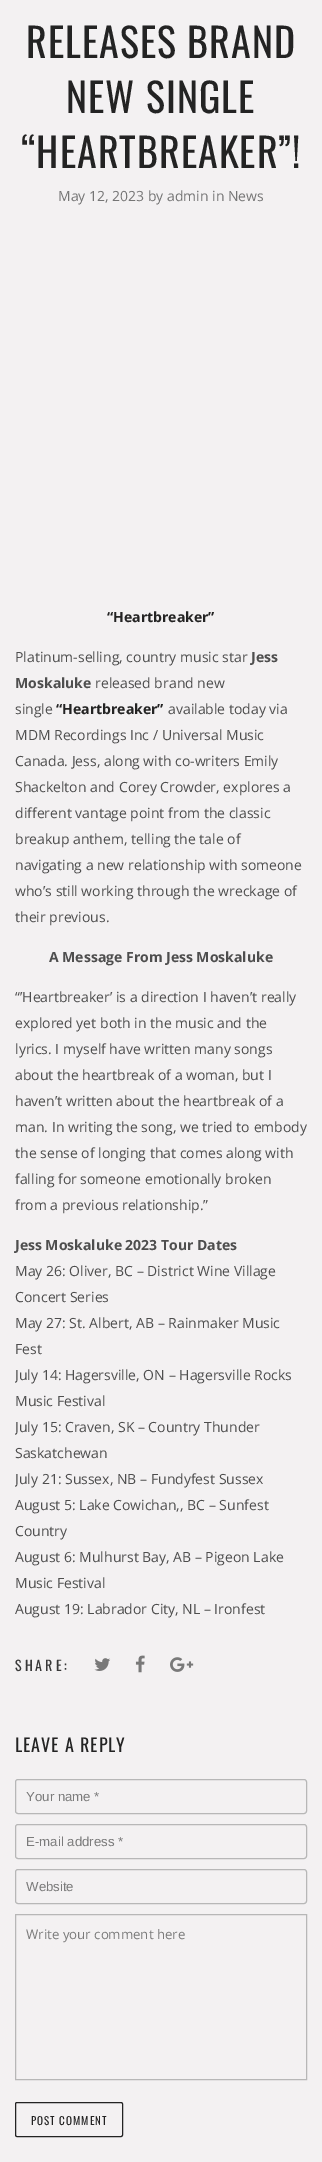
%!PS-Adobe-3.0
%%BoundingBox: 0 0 322 2162
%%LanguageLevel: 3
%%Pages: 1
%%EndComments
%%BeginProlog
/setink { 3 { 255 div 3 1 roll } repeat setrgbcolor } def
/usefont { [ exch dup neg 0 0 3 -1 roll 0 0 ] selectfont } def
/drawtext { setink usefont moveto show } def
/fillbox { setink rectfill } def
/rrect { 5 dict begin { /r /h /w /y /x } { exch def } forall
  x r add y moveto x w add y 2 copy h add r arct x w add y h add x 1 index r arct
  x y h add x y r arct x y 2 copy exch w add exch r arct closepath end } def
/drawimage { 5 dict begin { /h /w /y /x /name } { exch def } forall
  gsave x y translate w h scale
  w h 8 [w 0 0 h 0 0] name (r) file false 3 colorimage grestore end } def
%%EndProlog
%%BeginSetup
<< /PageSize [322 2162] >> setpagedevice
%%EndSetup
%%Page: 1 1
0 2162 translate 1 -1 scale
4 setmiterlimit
0 0 322 2162 243 241 242 fillbox
/Oswald-Regular 40 usefont
35 35 35 setink
26 58 moveto 1 0 (RELEASES BRAND) ashow
66 113 moveto 1 0 (NEW SINGLE) ashow
21 168 moveto 1 0 (“HEARTBREAKER”!) ashow
(May 12, 2023 by admin in News) 58 201 /OpenSans-Regular 14 117 117 117 drawtext
(“Heartbreaker”) 107 622 /OpenSans-Bold 14 35 35 35 drawtext
(Platinum-selling, country music star) 15 662 /OpenSans-Regular 14 78 78 78 drawtext
(Jess) 251 662 /OpenSans-Bold 14 78 78 78 drawtext
(Moskaluke) 15 688 /OpenSans-Bold 14 78 78 78 drawtext
(released brand new) 95 688 /OpenSans-Regular 14 78 78 78 drawtext
(single) 15 714 /OpenSans-Regular 14 78 78 78 drawtext
(“Heartbreaker”) 56 714 /OpenSans-Bold 14 35 35 35 drawtext
(available today via) 168 714 /OpenSans-Regular 14 78 78 78 drawtext
(MDM Recordings Inc / Universal Music) 15 740 /OpenSans-Regular 14 78 78 78 drawtext
(Canada. Jess, along with co-writers Emily) 15 766 /OpenSans-Regular 14 78 78 78 drawtext
(Shackelton and Corey Crowder, explores a) 15 792 /OpenSans-Regular 14 78 78 78 drawtext
(different vantage point from the classic) 15 818 /OpenSans-Regular 14 78 78 78 drawtext
(breakup anthem, telling the tale of) 15 844 /OpenSans-Regular 14 78 78 78 drawtext
(navigating a new relationship with someone) 15 870 /OpenSans-Regular 14 78 78 78 drawtext
(who’s still working through the wreckage of) 15 896 /OpenSans-Regular 14 78 78 78 drawtext
(their previous.) 15 922 /OpenSans-Regular 14 78 78 78 drawtext
(A Message From Jess Moskaluke) 49 962 /OpenSans-Bold 14 78 78 78 drawtext
(“’Heartbreaker’ is a direction I haven’t really) 15 1002 /OpenSans-Regular 14 78 78 78 drawtext
(explored yet both in the music and the) 15 1028 /OpenSans-Regular 14 78 78 78 drawtext
(lyrics. I myself have written many songs) 15 1054 /OpenSans-Regular 14 78 78 78 drawtext
(about the heartbreak of a woman, but I) 15 1080 /OpenSans-Regular 14 78 78 78 drawtext
(haven’t written about the heartbreak of a) 15 1106 /OpenSans-Regular 14 78 78 78 drawtext
(man. In writing the song, we tried to embody) 15 1132 /OpenSans-Regular 14 78 78 78 drawtext
(the sense of longing that comes along with) 15 1158 /OpenSans-Regular 14 78 78 78 drawtext
(falling for someone emotionally broken) 15 1184 /OpenSans-Regular 14 78 78 78 drawtext
(from a previous relationship.”) 15 1210 /OpenSans-Regular 14 78 78 78 drawtext
(Jess Moskaluke 2023 Tour Dates) 15 1250 /OpenSans-Bold 14 78 78 78 drawtext
(May 26: Oliver, BC – District Wine Village) 15 1276 /OpenSans-Regular 14 78 78 78 drawtext
(Concert Series) 15 1302 /OpenSans-Regular 14 78 78 78 drawtext
(May 27: St. Albert, AB – Rainmaker Music) 15 1328 /OpenSans-Regular 14 78 78 78 drawtext
(Fest) 15 1354 /OpenSans-Regular 14 78 78 78 drawtext
gsave
15 239 292 1912 rectclip
(July 14: Hagersville, ON – Hagersville Rocks) 15 1380 /OpenSans-Regular 14 78 78 78 drawtext
grestore
(Music Festival) 15 1406 /OpenSans-Regular 14 78 78 78 drawtext
gsave
15 239 292 1912 rectclip
(July 15: Craven, SK – Country Thunder) 15 1432 /OpenSans-Regular 14 78 78 78 drawtext
grestore
(Saskatchewan) 15 1458 /OpenSans-Regular 14 78 78 78 drawtext
gsave
15 239 292 1912 rectclip
(July 21: Sussex, NB – Fundyfest Sussex) 15 1484 /OpenSans-Regular 14 78 78 78 drawtext
grestore
(August 5: Lake Cowichan,, BC – Sunfest) 15 1510 /OpenSans-Regular 14 78 78 78 drawtext
(Country) 15 1536 /OpenSans-Regular 14 78 78 78 drawtext
(August 6: Mulhurst Bay, AB – Pigeon Lake) 15 1562 /OpenSans-Regular 14 78 78 78 drawtext
(Music Festival) 15 1588 /OpenSans-Regular 14 78 78 78 drawtext
(August 19: Labrador City, NL – Ironfest) 15 1614 /OpenSans-Regular 14 78 78 78 drawtext
/Oswald-Regular 14 usefont
56 56 56 setink
15 1671 moveto 3 0 (SHARE:) ashow
(assets/img1.rgb) 94 1658 17 13 drawimage
(assets/img2.rgb) 135 1655 10 18 drawimage
(assets/img3.rgb) 170 1657 24 15 drawimage
/Oswald-Regular 18 usefont
35 35 35 setink
15 1752 moveto 1 0 (LEAVE A REPLY) ashow
183 183 183 setink
15.5 1779.5 291 34 2.5 rrect stroke
(Your name *) 26 1801 /LiberationSans-Regular 13.25 123 123 123 drawtext
183 183 183 setink
15.5 1824.5 291 34 2.5 rrect stroke
(E-mail address *) 26 1846 /LiberationSans-Regular 13.25 123 123 123 drawtext
183 183 183 setink
15.5 1869.5 291 34 2.5 rrect stroke
(Website) 26 1891 /LiberationSans-Regular 13.25 123 123 123 drawtext
183 183 183 setink
15.5 1914.5 291 165 rectstroke
(Write your comment here) 26 1939 /OpenSans-Regular 13.25 123 123 123 drawtext
35 35 35 setink
15.5 2102.5 107 34 1.5 rrect stroke
/Oswald-Regular 11 usefont
31 2125 moveto 1 0 (POST COMMENT) ashow
showpage
%%EOF
